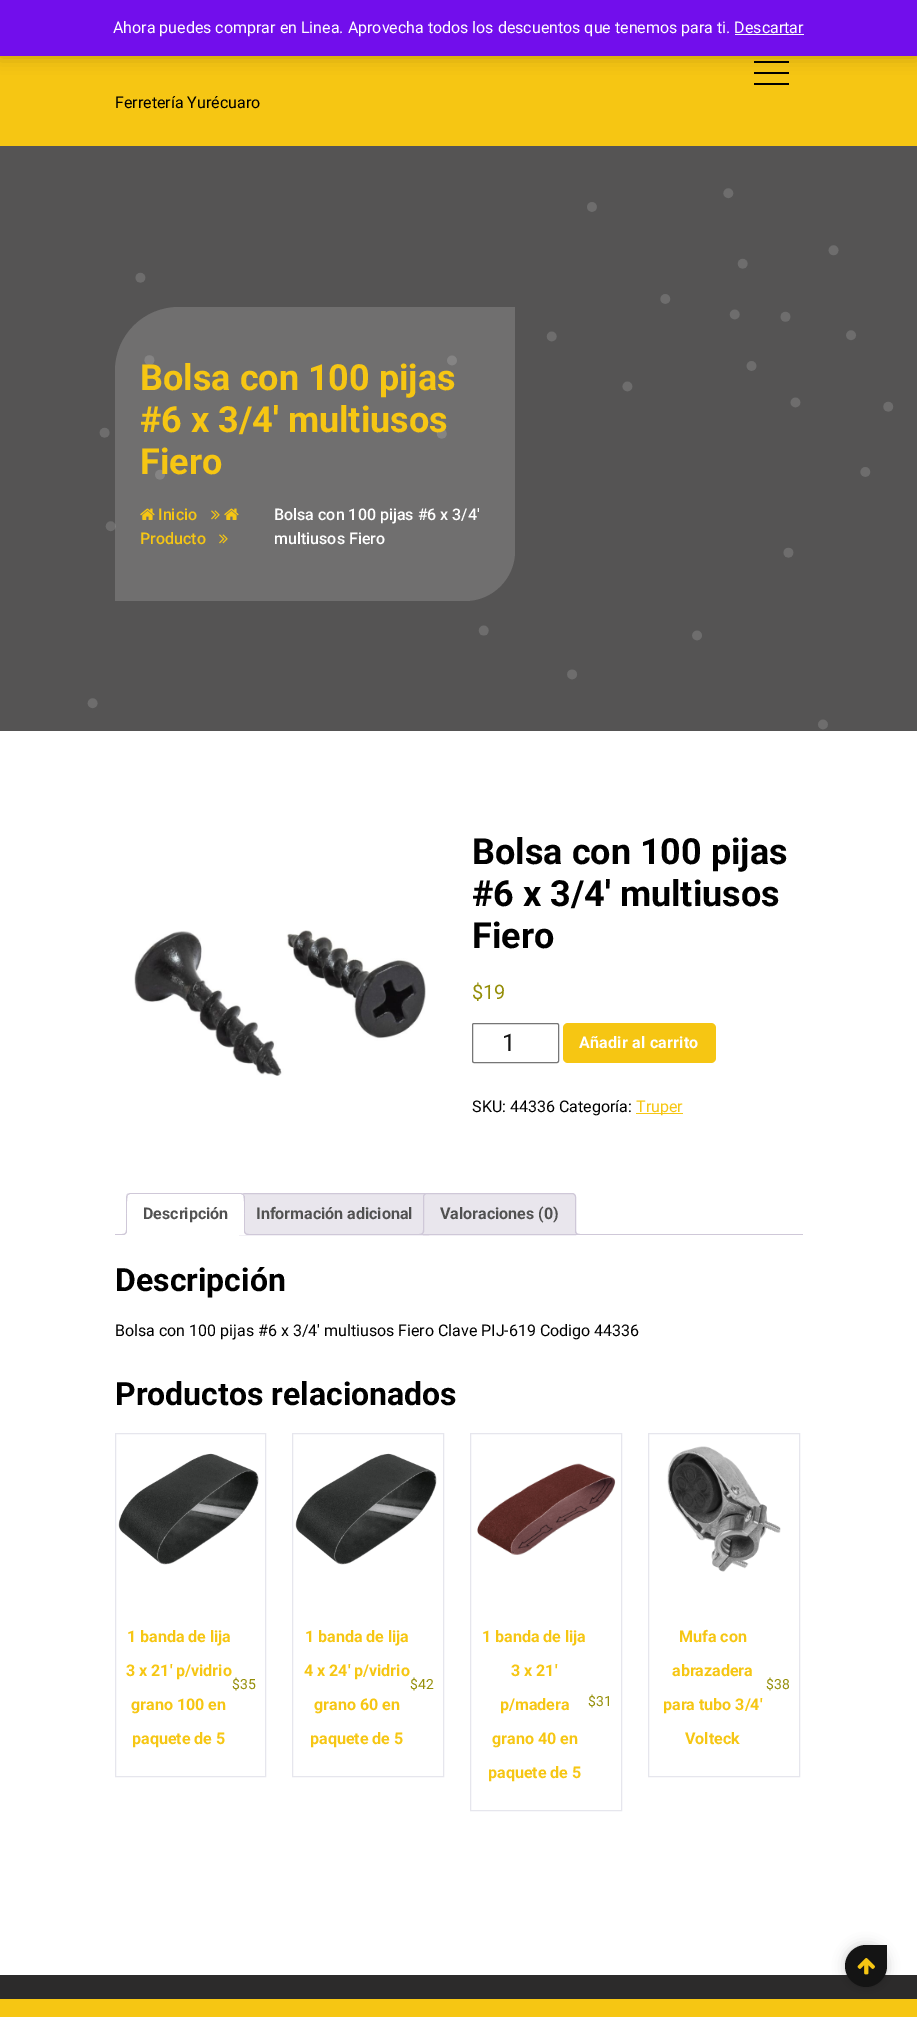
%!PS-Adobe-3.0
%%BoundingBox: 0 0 917 2017
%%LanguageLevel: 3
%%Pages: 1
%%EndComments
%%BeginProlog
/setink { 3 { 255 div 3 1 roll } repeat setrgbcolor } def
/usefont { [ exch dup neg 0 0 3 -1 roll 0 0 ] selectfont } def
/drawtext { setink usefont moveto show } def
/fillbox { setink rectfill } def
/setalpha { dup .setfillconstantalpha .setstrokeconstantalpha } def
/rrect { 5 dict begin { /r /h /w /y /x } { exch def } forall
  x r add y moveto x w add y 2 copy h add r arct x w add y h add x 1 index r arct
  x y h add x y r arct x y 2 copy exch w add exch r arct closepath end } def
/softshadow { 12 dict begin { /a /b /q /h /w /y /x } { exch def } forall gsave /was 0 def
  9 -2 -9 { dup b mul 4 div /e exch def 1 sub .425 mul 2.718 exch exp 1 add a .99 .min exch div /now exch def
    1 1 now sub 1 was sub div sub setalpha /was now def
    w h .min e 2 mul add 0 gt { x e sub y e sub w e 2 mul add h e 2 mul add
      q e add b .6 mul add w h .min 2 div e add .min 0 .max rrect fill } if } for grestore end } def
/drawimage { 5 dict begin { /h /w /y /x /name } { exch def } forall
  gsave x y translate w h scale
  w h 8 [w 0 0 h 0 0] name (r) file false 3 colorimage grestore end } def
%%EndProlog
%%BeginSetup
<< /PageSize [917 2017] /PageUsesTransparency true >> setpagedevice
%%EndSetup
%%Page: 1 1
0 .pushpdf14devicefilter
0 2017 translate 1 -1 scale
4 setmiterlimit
0 0 917 2017 255 255 255 fillbox
0 56 917 90 246 198 19 fillbox
754 61 35 2 0 0 0 fillbox
754 72 35 2 0 0 0 fillbox
0 1 917 56 0 8 0.2 softshadow
0 0 917 56 114 14 236 fillbox
(Ahora puedes comprar en Linea. Aprovecha todos los descuentos que tenemos para ti. Descartar) 113 33 /Roboto-Regular 16 255 255 255 drawtext
735 34 69 1 252 251 254 fillbox
754 83 35 2 0 0 0 fillbox
(Ferretería Yurécuaro) 115 108 /Roboto-Regular 16 0 0 0 drawtext
0 146 917 585 85 84 84 fillbox
(assets/img1.rgb) 87 188 807 542 drawimage
0.16 setalpha
255 255 255 setink
179 307 moveto 515 307 lineto 515 551 lineto 515 578.5 492.5 601 465 601 curveto 115 601 lineto 115 371 lineto 115 335.5 143.5 307 179 307 curveto closepath fill
1 setalpha
(Bolsa con 100 pijas) 140 390 /Roboto-Bold 36 246 198 19 drawtext
(#6 x 3/4′ multiusos) 140 432 /Roboto-Bold 36 246 198 19 drawtext
(Fiero) 140 474 /Roboto-Bold 36 246 198 19 drawtext
(assets/img2.rgb) 140 508 15 12 drawimage
(Inicio) 158 520 /Roboto-Medium 16 246 198 19 drawtext
(assets/img3.rgb) 211 510 9 10 drawimage
(assets/img2.rgb) 224 508 15 12 drawimage
(Producto) 140 544 /Roboto-Medium 16 246 198 19 drawtext
(assets/img3.rgb) 219 534 9 10 drawimage
(Bolsa con 100 pijas #6 x 3/4′) 274 520 /Roboto-Medium 16 255 255 255 drawtext
(multiusos Fiero) 274 544 /Roboto-Medium 16 255 255 255 drawtext
(assets/img4.rgb) 134 930 292 146 drawimage
(Bolsa con 100 pijas) 472 864 /Roboto-Bold 36 0 0 0 drawtext
(#6 x 3/4′ multiusos) 472 906 /Roboto-Bold 36 0 0 0 drawtext
(Fiero) 472 948 /Roboto-Bold 36 0 0 0 drawtext
($19) 472 999 /Roboto-Regular 20 149 142 9 drawtext
118 118 118 setink
472.5 1023.5 86 39 1.5 rrect stroke
(1) 502 1051 /Roboto-Regular 24 20 20 20 drawtext
246 198 19 setink
563 1023 153 40 5 rrect fill
/Roboto-Bold 16 usefont
255 255 255 setink
579 1048 moveto 0.25 0 (Añadir al carrito) ashow
(SKU: 44336 Categoría:) 472 1112 /Roboto-Regular 16 0 0 0 drawtext
636 1113 47 1 246 198 19 fillbox
(Truper) 636 1112 /Roboto-Regular 16 246 198 19 drawtext
233 230 237 setink
243 1193.5 moveto 425 1193.5 lineto 427 1193.5 428.5 1195 428.5 1197 curveto 428.5 1234.5 lineto 239.5 1234.5 lineto 239.5 1197 lineto 239.5 1195 241 1193.5 243 1193.5 curveto closepath gsave fill grestore
207 200 216 setink
stroke
233 230 237 setink
427 1193.5 moveto 572 1193.5 lineto 574 1193.5 575.5 1195 575.5 1197 curveto 575.5 1234.5 lineto 423.5 1234.5 lineto 423.5 1197 lineto 423.5 1195 425 1193.5 427 1193.5 curveto closepath gsave fill grestore
207 200 216 setink
stroke
gsave
115 1193 688 42 rectclip
233 230 237 setink
421 1235 moveto 421 1237 lineto 424.5 1237 426 1235.5 426 1232 curveto 424 1232 lineto 423.5 1233.5 422.5 1234.5 421 1235 curveto closepath fill
grestore
419 1230 moveto 424 1230 lineto 424 1233.5 422.5 1235 419 1235 curveto closepath 419 1230 moveto 423 1230 lineto 423 1233 422 1234 419 1234 curveto closepath eofill
gsave
115 1193 688 42 rectclip
233 230 237 setink
573 1232 moveto 573 1235.5 574.5 1237 578 1237 curveto 578 1235 lineto 576.5 1234.5 575.5 1233.5 575 1232 curveto closepath fill
grestore
575 1230 moveto 580 1230 lineto 580 1235 lineto 577.5 1235 575 1234 575 1231 curveto closepath 576 1230 moveto 580 1230 lineto 580 1234 lineto 578 1234 576 1233.5 576 1231 curveto closepath eofill
115 1234 688 1 207 200 216 fillbox
255 255 255 setink
130 1193 moveto 241 1193 lineto 243 1193 245 1195 245 1197 curveto 245 1235 lineto 126 1235 lineto 126 1197 lineto 126 1195 128 1193 130 1193 curveto closepath fill
207 200 216 setink
130 1193 moveto 127 1194 lineto 128 1195 lineto 130 1194 lineto 241 1194 lineto 243 1195 lineto 244 1194 lineto 241 1193 lineto closepath fill
245 1235 moveto 245 1197 lineto 245 1196 244 1195 244 1194 curveto 243 1195 lineto 245 1197 244 1229 244 1234 curveto closepath fill
255 255 255 setink
245 1235 moveto 244 1234 lineto 127 1234 lineto 126 1235 lineto closepath fill
207 200 216 setink
126 1235 moveto 127 1234 lineto 127 1229 126 1197 128 1195 curveto 127 1194 lineto 126 1197 lineto closepath fill
(Descripción) 143 1219 /Roboto-Bold 16 81 81 81 drawtext
gsave
115 1193 688 42 rectclip
255 255 255 setink
124 1235 moveto 124 1237 lineto 127.5 1237 129 1235.5 129 1232 curveto 127 1232 lineto 126.5 1233.5 125.5 1234.5 124 1235 curveto closepath fill
grestore
207 200 216 setink
122 1230 moveto 127 1230 lineto 127 1233.5 125.5 1235 122 1235 curveto closepath 122 1230 moveto 126 1230 lineto 126 1233 125 1234 122 1234 curveto closepath eofill
gsave
115 1193 688 42 rectclip
255 255 255 setink
242 1232 moveto 242 1235.5 243.5 1237 247 1237 curveto 247 1235 lineto 245.5 1234.5 244.5 1233.5 244 1232 curveto closepath fill
grestore
244 1230 moveto 249 1230 lineto 249 1235 lineto 246.5 1235 244 1234 244 1231 curveto closepath 245 1230 moveto 249 1230 lineto 249 1234 lineto 247 1234 245 1233.5 245 1231 curveto closepath eofill
(Información adicional) 256 1219 /Roboto-Bold 16 81 81 81 drawtext
(Valoraciones \(0\)) 440 1219 /Roboto-Bold 16 81 81 81 drawtext
(Descripción) 115 1291 /Roboto-Bold 32 0 0 0 drawtext
(Bolsa con 100 pijas #6 x 3/4′ multiusos Fiero Clave PIJ-619 Codigo 44336) 115 1336 /Roboto-Regular 16 0 0 0 drawtext
(Productos relacionados) 115 1405 /Roboto-Bold 32 0 0 0 drawtext
230 230 237 setink
115.5 1433.5 150 343 rectstroke
(assets/img5.rgb) 118 1453 141 112 drawimage
(1 banda de lija) 127 1642 /Roboto-Bold 16 246 198 19 drawtext
(3 x 21′ p/vidrio) 126 1676 /Roboto-Bold 16 246 198 19 drawtext
(grano 100 en) 131 1710 /Roboto-Bold 16 246 198 19 drawtext
(paquete de 5) 132 1744 /Roboto-Bold 16 246 198 19 drawtext
($35) 232 1689 /Roboto-Regular 14 149 142 9 drawtext
230 230 237 setink
292.5 1433.5 151 343 rectstroke
(assets/img6.rgb) 295 1453 142 112 drawimage
(1 banda de lija) 305 1642 /Roboto-Bold 16 246 198 19 drawtext
(4 x 24′ p/vidrio) 304 1676 /Roboto-Bold 16 246 198 19 drawtext
(grano 60 en) 314 1710 /Roboto-Bold 16 246 198 19 drawtext
(paquete de 5) 310 1744 /Roboto-Bold 16 246 198 19 drawtext
($42) 410 1689 /Roboto-Regular 14 149 142 9 drawtext
230 230 237 setink
470.5 1433.5 151 377 rectstroke
(assets/img7.rgb) 477 1463 139 92 drawimage
(1 banda de lija) 482 1642 /Roboto-Bold 16 246 198 19 drawtext
(3 x 21′) 511 1676 /Roboto-Bold 16 246 198 19 drawtext
(p/madera) 500 1710 /Roboto-Bold 16 246 198 19 drawtext
(grano 40 en) 492 1744 /Roboto-Bold 16 246 198 19 drawtext
(paquete de 5) 488 1778 /Roboto-Bold 16 246 198 19 drawtext
($31) 588 1706 /Roboto-Regular 14 149 142 9 drawtext
230 230 237 setink
648.5 1433.5 151 343 rectstroke
(assets/img8.rgb) 667 1446 114 126 drawimage
(Mufa con) 679 1642 /Roboto-Bold 16 246 198 19 drawtext
(abrazadera) 672 1676 /Roboto-Bold 16 246 198 19 drawtext
(para tubo 3/4′) 663 1710 /Roboto-Bold 16 246 198 19 drawtext
(Volteck) 685 1744 /Roboto-Bold 16 246 198 19 drawtext
($38) 766 1689 /Roboto-Regular 14 149 142 9 drawtext
0 1975 917 24 44 43 43 fillbox
0 1999 917 18 246 198 19 fillbox
0 0 0 setink
845 1945 42 42 21 6 0.2 softshadow
20 20 20 setink
866 1945 moveto 887 1945 lineto 887 1966 lineto 887 1977.5 877.5 1987 866 1987 curveto 854.5 1987 845 1977.5 845 1966 curveto 845 1954.5 854.5 1945 866 1945 curveto closepath fill
(assets/img9.rgb) 857 1958 18 17 drawimage
.poppdf14devicefilter showpage
%%EOF
